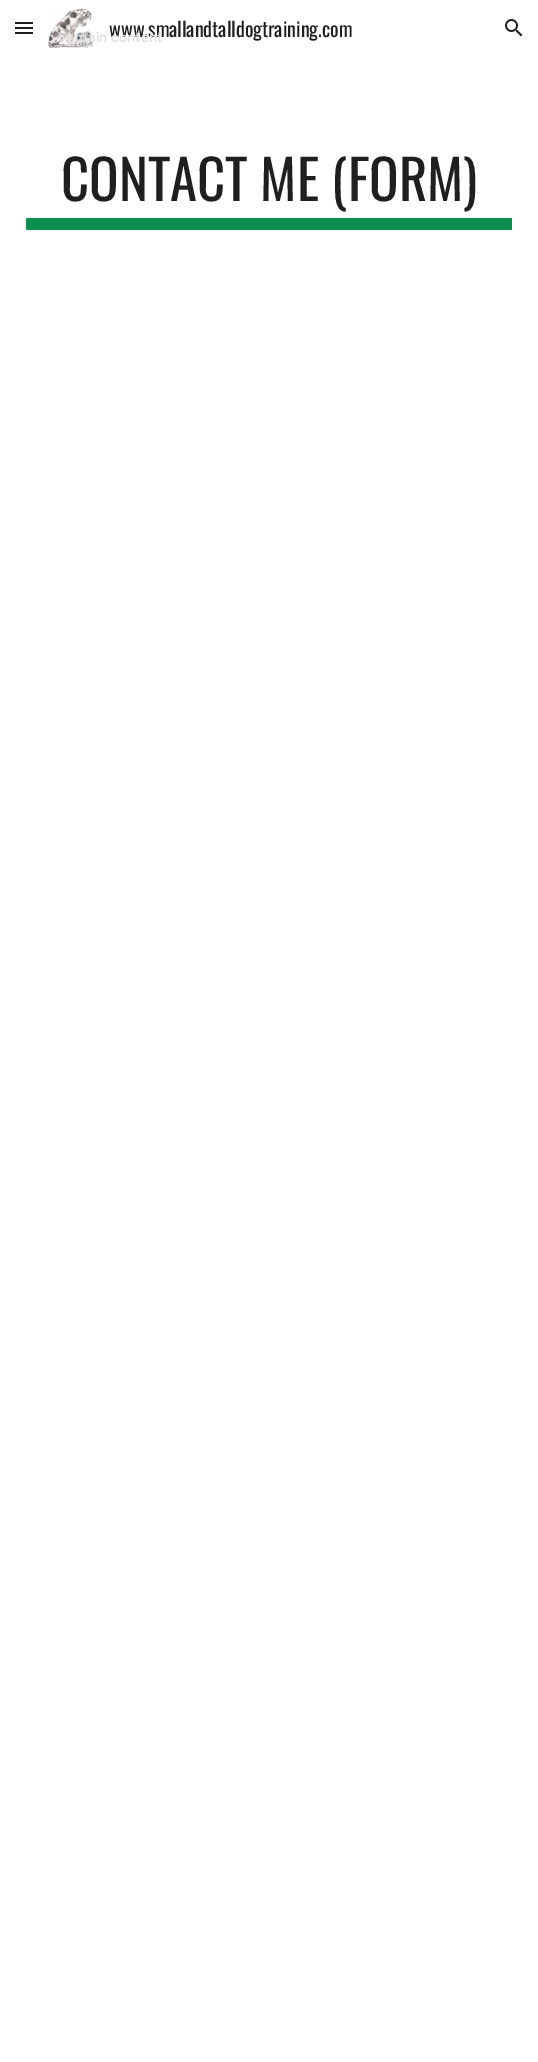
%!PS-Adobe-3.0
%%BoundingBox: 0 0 538 2062
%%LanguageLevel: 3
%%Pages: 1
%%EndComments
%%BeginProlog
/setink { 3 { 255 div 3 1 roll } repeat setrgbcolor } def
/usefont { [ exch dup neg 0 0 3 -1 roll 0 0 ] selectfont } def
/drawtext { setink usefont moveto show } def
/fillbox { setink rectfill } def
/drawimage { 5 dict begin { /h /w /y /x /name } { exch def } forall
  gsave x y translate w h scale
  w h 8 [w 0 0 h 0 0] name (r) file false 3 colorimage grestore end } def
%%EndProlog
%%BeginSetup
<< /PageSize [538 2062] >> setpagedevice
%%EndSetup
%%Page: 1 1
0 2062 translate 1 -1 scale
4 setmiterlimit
0 0 538 2062 255 255 255 fillbox
(assets/img1.rgb) 48 8 45 40 drawimage
(www.smallandtalldogtraining.com) 109 37 /Oswald-Regular 20 31 31 31 drawtext
/GoogleSans-Medium 14 usefont
224 223 223 setink
46 42 moveto 0.1 0 (p to main content) ashow
47 34 1 11 255 255 255 fillbox
15 22 18 2 31 31 31 fillbox
15 27 18 2 31 31 31 fillbox
15 32 18 2 31 31 31 fillbox
(assets/img2.rgb) 505 19 18 18 drawimage
(CONTACT ME \(FORM\)) 61 201 /Oswald-Regular 54.75 31 31 31 drawtext
26 218 486 12 13 144 79 fillbox
showpage
%%EOF
